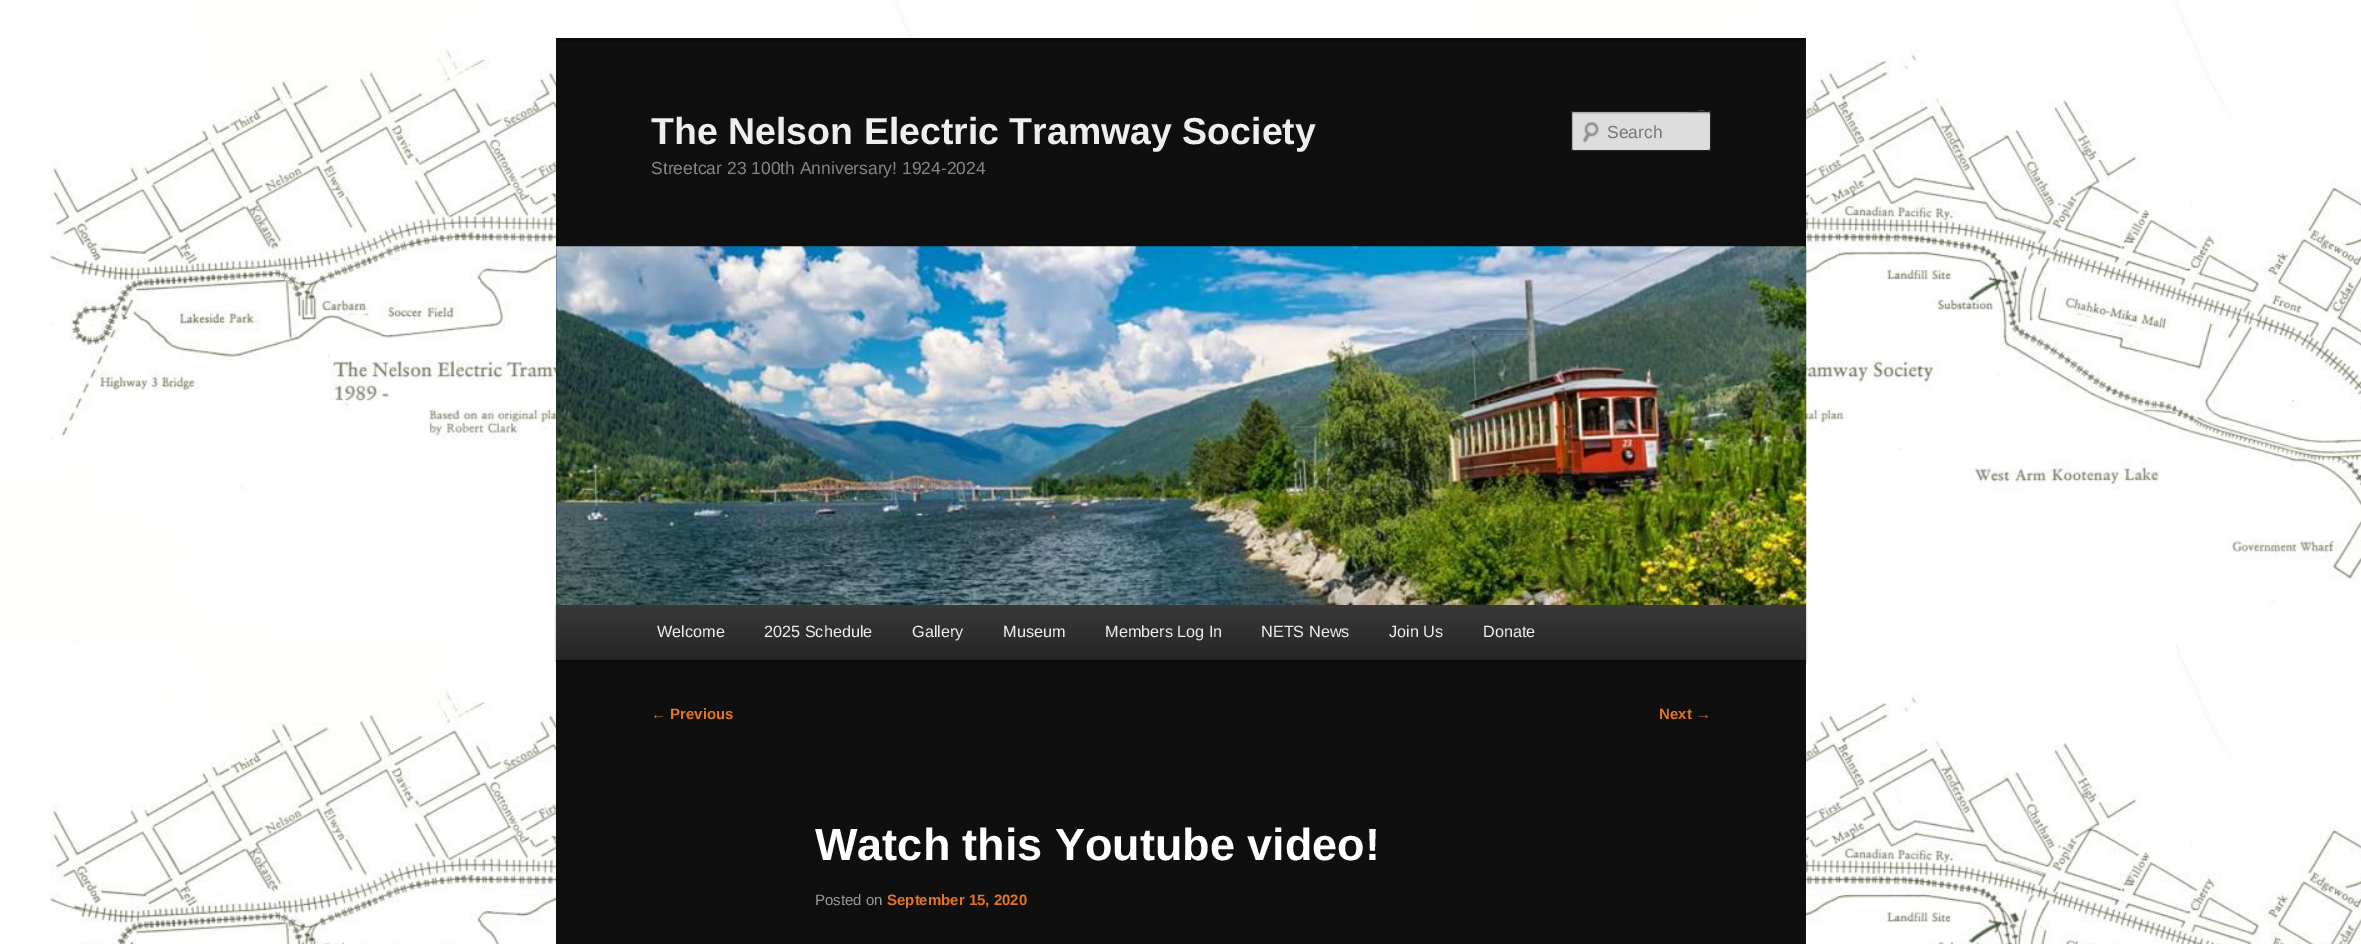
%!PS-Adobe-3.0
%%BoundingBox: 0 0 2361 944
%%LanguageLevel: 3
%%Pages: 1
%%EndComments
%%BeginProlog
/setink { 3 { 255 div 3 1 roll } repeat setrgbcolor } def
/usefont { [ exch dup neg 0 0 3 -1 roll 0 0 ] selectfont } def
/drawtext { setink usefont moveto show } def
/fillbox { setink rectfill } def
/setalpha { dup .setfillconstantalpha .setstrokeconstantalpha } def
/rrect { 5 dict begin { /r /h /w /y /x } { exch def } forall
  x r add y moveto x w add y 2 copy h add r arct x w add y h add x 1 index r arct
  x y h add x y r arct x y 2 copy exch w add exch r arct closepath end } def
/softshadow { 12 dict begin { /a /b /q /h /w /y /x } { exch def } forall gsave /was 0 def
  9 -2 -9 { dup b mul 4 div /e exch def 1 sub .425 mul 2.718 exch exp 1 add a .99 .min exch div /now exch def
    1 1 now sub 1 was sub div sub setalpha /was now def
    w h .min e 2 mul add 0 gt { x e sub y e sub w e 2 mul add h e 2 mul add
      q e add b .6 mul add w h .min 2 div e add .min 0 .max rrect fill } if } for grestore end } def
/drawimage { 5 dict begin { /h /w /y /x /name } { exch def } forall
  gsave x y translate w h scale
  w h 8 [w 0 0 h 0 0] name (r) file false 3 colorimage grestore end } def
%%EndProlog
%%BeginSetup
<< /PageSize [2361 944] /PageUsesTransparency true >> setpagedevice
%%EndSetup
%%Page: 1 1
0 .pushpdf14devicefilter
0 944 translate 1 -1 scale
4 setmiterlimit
0 0 2361 944 255 255 255 fillbox
(assets/img1.rgb) 0 0 2361 944 drawimage
556 41 1250 903 15 15 15 fillbox
556 38 1250 3 10 10 10 fillbox
(The Nelson Electric Tramway Society) 651 144 /LiberationSans-Bold 37.5 238 238 238 drawtext
(Streetcar 23 100th Anniversary! 1924-2024) 651 174 /LiberationSans-Regular 17.5 133 133 133 drawtext
221 221 221 setink
1571 111 140 40 2.5 rrect fill
(assets/img2.rgb) 1582 121 17 22 drawimage
199 199 199 setink
1574 114 moveto 1709 114 lineto 1710 115 lineto 1710 107 1687 113 1686 113 curveto 1574 113 lineto 1573 114 lineto closepath fill
34 34 34 setink
1571.5 111.5 139 39 2 rrect stroke
(Search) 1607 138 /LiberationSans-Regular 17.5 117 117 117 drawtext
0 0 0 setink
556 606 1250 55 0 1 0.4 softshadow
(assets/img3.rgb) 556 246 1251 359 drawimage
gsave 556 605 moveto 1806 605 lineto 1806 659 lineto 556 659 lineto closepath clip newpath
<< /ShadingType 2 /ColorSpace /DeviceRGB /Coords [1181 605 1181 659] /Extend [true true] /Function << /FunctionType 2 /Domain [0 1] /C0 [0.22 0.22 0.22] /C1 [0.153 0.153 0.153] /N 1 >> >> shfill grestore
556 659 1250 1 34 34 34 fillbox
(Welcome) 657 637 /LiberationSans-Regular 16.25 238 238 238 drawtext
(2025 Schedule) 764 637 /LiberationSans-Regular 16.25 238 238 238 drawtext
(Gallery) 912 637 /LiberationSans-Regular 16.25 238 238 238 drawtext
(Museum) 1003 637 /LiberationSans-Regular 16.25 238 238 238 drawtext
(Members Log In) 1105 637 /LiberationSans-Regular 16.25 238 238 238 drawtext
(NETS News) 1261 637 /LiberationSans-Regular 16.25 238 238 238 drawtext
(Join Us) 1389 637 /LiberationSans-Regular 16.25 238 238 238 drawtext
(Donate) 1483 637 /LiberationSans-Regular 16.25 238 238 238 drawtext
(←) 651 719 /LiberationSans-Regular 15 228 116 31 drawtext
(Previous) 670 719 /LiberationSans-Bold 15 228 116 31 drawtext
(Next) 1659 719 /LiberationSans-Bold 15 228 116 31 drawtext
(→) 1696 719 /LiberationSans-Regular 15 228 116 31 drawtext
(Watch this Youtube video!) 815 860 /LiberationSans-Bold 45 255 255 255 drawtext
(Posted on) 815 905 /LiberationSans-Regular 15 153 153 153 drawtext
(September 15, 2020) 887 905 /LiberationSans-Bold 15 228 116 31 drawtext
.poppdf14devicefilter showpage
%%EOF
